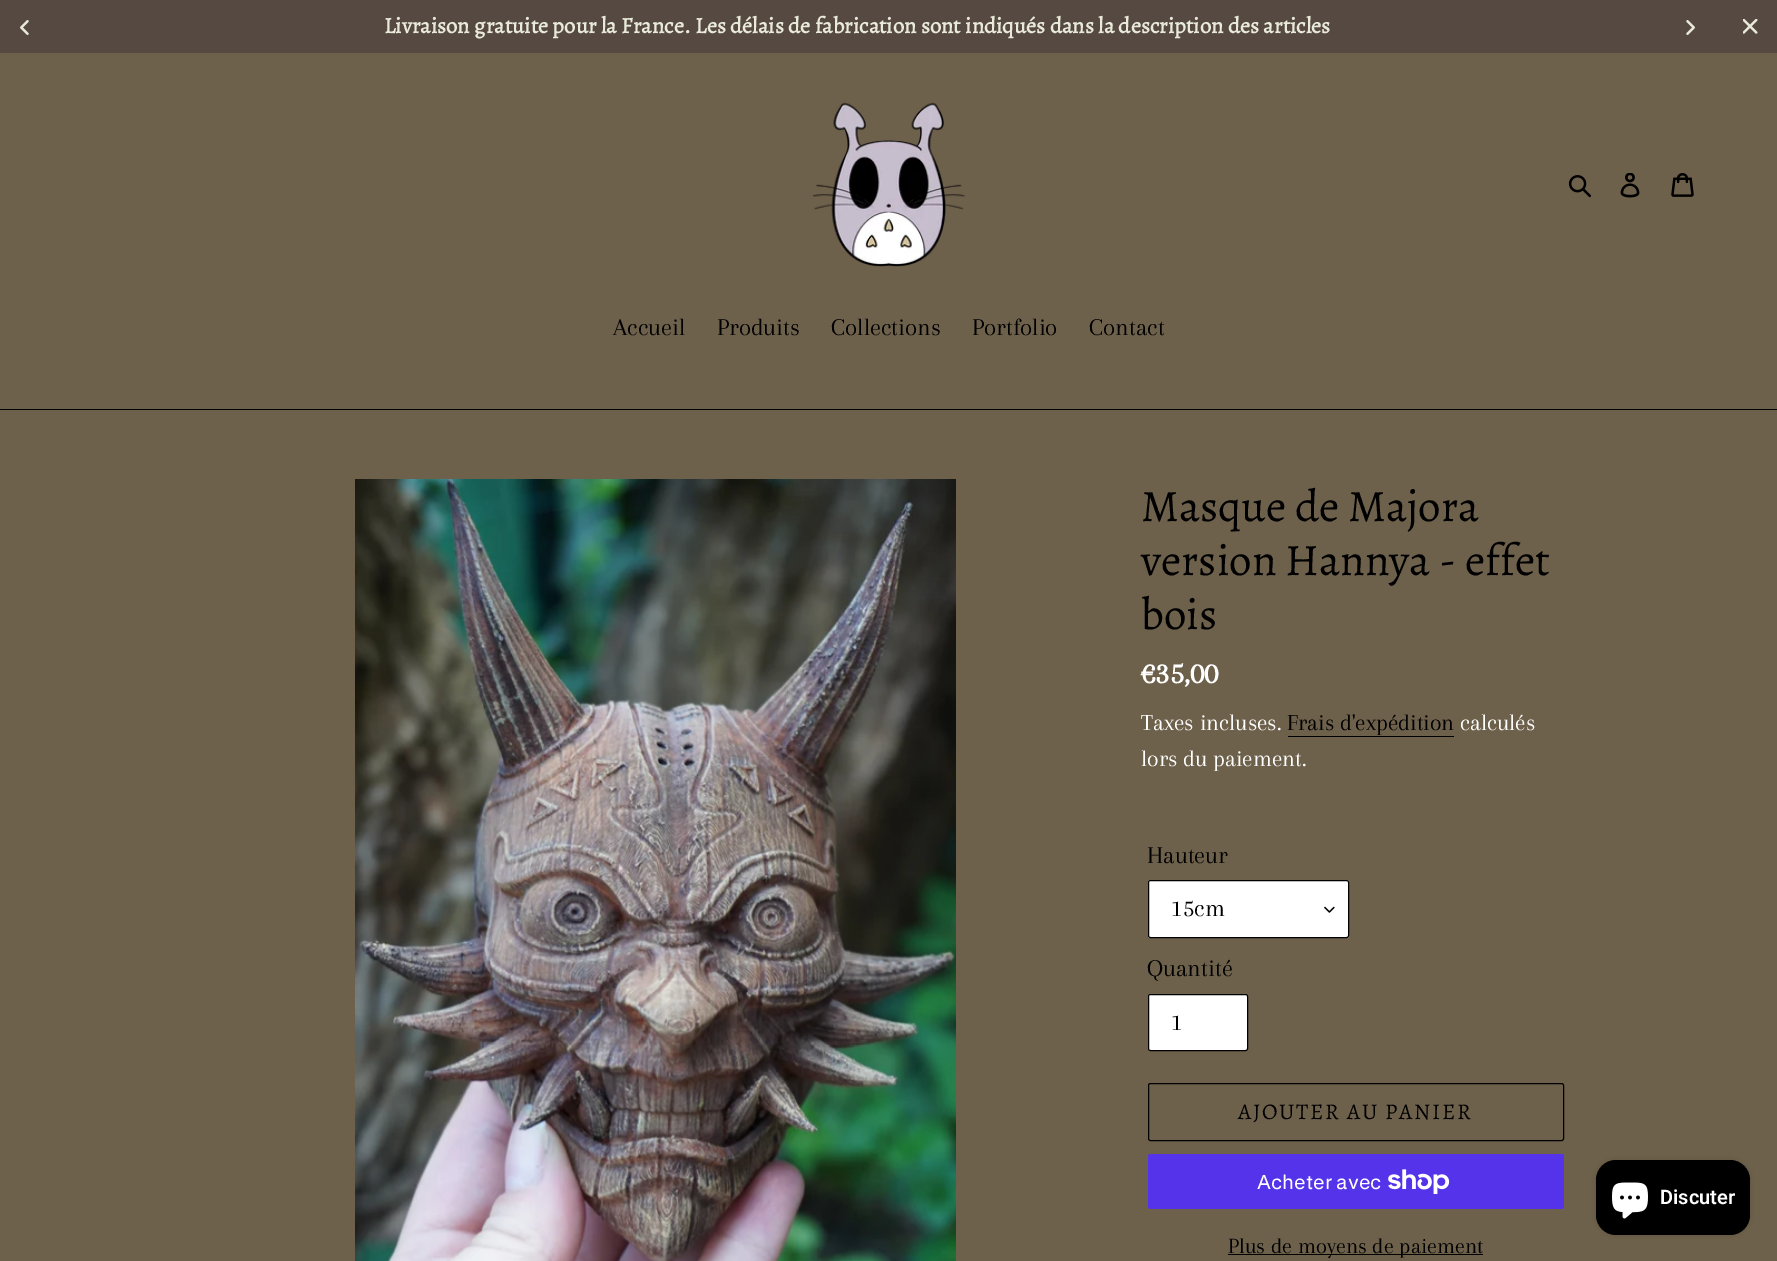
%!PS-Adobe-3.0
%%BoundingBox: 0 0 1777 1261
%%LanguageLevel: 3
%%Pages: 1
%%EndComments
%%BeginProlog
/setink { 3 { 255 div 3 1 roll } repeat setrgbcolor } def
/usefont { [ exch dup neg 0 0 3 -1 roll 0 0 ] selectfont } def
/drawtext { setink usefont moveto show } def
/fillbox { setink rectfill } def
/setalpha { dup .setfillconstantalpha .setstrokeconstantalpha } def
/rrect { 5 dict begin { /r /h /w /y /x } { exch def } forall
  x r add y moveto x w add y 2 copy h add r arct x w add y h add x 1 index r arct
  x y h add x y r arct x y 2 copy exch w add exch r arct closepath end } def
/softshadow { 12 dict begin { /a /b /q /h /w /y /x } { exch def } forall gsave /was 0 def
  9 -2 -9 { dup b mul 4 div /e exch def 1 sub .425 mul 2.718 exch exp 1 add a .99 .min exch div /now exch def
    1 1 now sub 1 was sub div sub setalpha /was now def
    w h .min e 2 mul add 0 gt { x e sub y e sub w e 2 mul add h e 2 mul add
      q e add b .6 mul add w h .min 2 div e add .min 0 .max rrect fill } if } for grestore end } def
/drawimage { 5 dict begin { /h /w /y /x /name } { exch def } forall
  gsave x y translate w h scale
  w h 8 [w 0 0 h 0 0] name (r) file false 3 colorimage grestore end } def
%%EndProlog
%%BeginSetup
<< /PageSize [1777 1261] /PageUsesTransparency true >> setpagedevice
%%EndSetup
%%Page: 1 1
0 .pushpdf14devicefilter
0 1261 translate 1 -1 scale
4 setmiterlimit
0 0 1777 1261 110 97 76 fillbox
0 0 1777 53 86 73 66 fillbox
(Livraison gratuite pour la France. Les délais de fabrication sont indiqués dans la description des articles) 384 33 /Alegreya-Bold 22.5 233 234 217 drawtext
(assets/img1.rgb) 20 20 9 15 drawimage
(assets/img2.rgb) 1686 20 9 15 drawimage
(assets/img3.rgb) 1743 19 15 15 drawimage
(assets/img4.rgb) 812 102 153 165 drawimage
(assets/img5.rgb) 1568 175 23 23 drawimage
(assets/img6.rgb) 1620 173 20 25 drawimage
(assets/img7.rgb) 1671 173 23 24 drawimage
0 409 1777 1 0 0 0 fillbox
(Accueil) 613 335 /Arapey-Regular 25 0 0 0 drawtext
(Produits) 717 335 /Arapey-Regular 25 0 0 0 drawtext
(Collections) 831 335 /Arapey-Regular 25 0 0 0 drawtext
(Portfolio) 972 335 /Arapey-Regular 25 0 0 0 drawtext
(Contact) 1089 335 /Arapey-Regular 25 0 0 0 drawtext
(assets/img8.rgb) 355 479 601 782 drawimage
(Masque de Majora) 1141 521 /Alegreya-Regular 45 0 0 0 drawtext
(version Hannya - effet) 1141 575 /Alegreya-Regular 45 0 0 0 drawtext
(bois) 1141 629 /Alegreya-Regular 45 0 0 0 drawtext
(€35,00) 1141 683 /Arapey-Bold 31 255 255 255 drawtext
(Taxes incluses.) 1141 730 /Arapey-Regular 23.75 255 255 255 drawtext
(Frais d'expédition) 1287 730 /Arapey-Regular 23.75 0 0 0 drawtext
1288 736 166 1 0 0 0 fillbox
(calculés) 1460 730 /Arapey-Regular 23.75 255 255 255 drawtext
(lors du paiement.) 1141 766 /Arapey-Regular 23.75 255 255 255 drawtext
(Hauteur) 1147 863 /Arapey-Regular 25 0 0 0 drawtext
255 255 255 setink
1148 880 201 58 2.5 rrect fill
(assets/img9.rgb) 1324 906 11 7 drawimage
0 0 0 setink
1148.5 880.5 200 57 2 rrect stroke
(15cm) 1171 916 /Arapey-Regular 25 0 0 0 drawtext
(Quantité) 1147 976 /Arapey-Regular 25 0 0 0 drawtext
255 255 255 setink
1148.5 994.5 99 56 2 rrect gsave fill grestore
0 0 0 setink
stroke
(1) 1171 1030 /Arapey-Regular 25 0 0 0 drawtext
1148.5 1083.5 415 57 2 rrect stroke
/Alegreya-Regular 22.5 usefont
1238 1119 moveto 1.75 0 (AJOUTER AU PANIER) ashow
84 51 235 setink
1148 1154 416 55 2.5 rrect fill
(Acheter avec) 1257 1189 /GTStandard-Regular 20 255 255 255 drawtext
(assets/img10.rgb) 1388 1169 62 25 drawimage
1228 1254 255 1 0 0 0 fillbox
(Plus de moyens de paiement) 1228 1253 /Arapey-Regular 22.5 0 0 0 drawtext
1596 1160 154 75 20 3 0.15 softshadow
1596 1160 154 75 20 rrect fill
(assets/img11.rgb) 1612 1182 36 37 drawimage
(Discuter) 1660 1204 /Roboto-SemiBold 20 255 255 255 drawtext
.poppdf14devicefilter showpage
%%EOF
